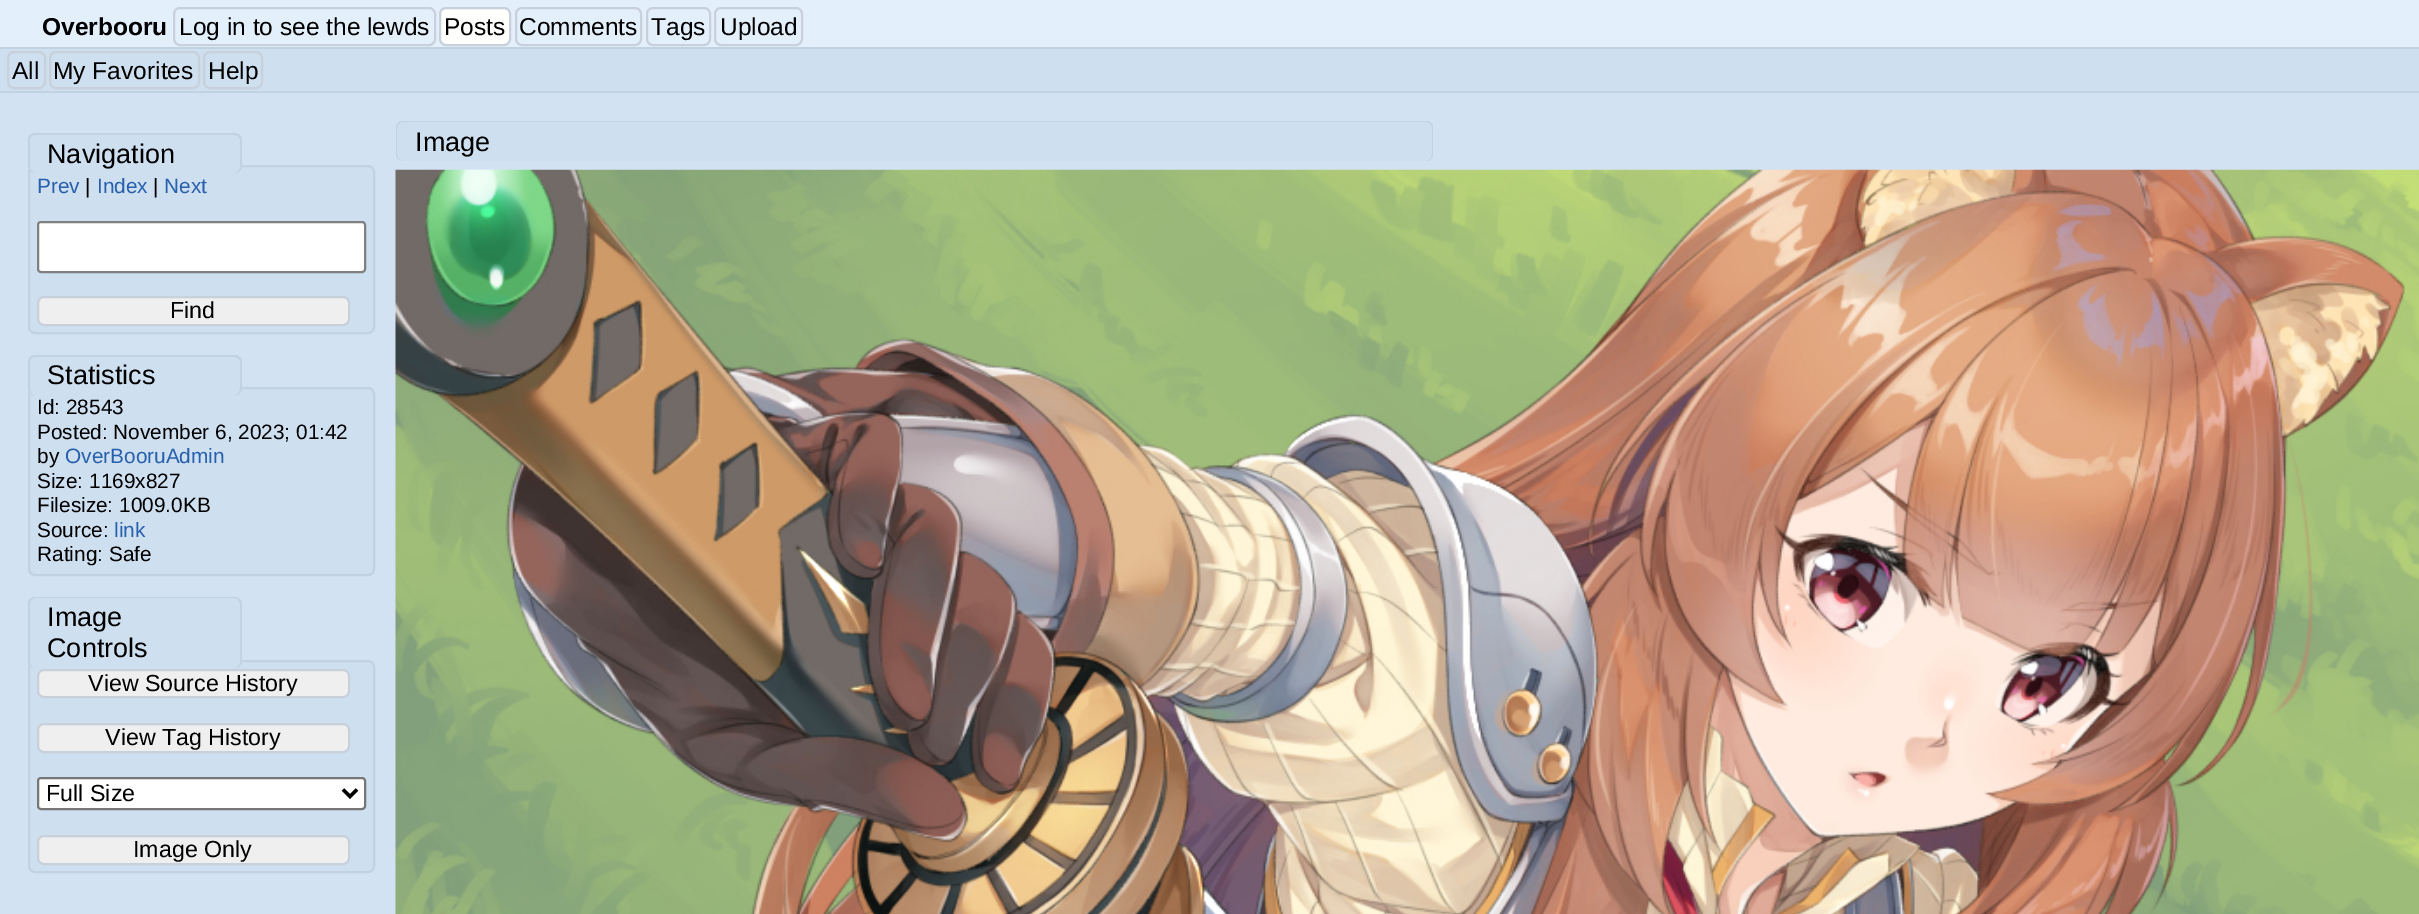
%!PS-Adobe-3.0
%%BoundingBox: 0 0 2419 914
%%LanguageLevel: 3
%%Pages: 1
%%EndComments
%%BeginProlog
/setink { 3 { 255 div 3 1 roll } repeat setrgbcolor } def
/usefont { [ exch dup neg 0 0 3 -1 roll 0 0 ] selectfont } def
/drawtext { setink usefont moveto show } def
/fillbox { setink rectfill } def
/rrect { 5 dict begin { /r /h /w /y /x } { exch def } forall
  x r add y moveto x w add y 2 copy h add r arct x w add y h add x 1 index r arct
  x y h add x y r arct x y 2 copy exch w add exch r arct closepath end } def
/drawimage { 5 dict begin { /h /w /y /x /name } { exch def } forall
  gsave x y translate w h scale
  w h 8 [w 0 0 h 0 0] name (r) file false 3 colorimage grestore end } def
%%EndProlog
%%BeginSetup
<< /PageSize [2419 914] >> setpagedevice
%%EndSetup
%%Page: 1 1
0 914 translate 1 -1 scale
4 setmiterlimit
0 0 2419 914 211 226 243 fillbox
0 0 2419 47 227 239 250 fillbox
0 47 2419 2 195 210 224 fillbox
(Overbooru) 42 35 /LiberationSans-Bold 24.5 0 0 0 drawtext
200 209 219 setink
2 setlinewidth
174 8 261 37 6 rrect stroke
(Log in to see the lewds) 179 35 /LiberationSans-Regular 24.5 0 0 0 drawtext
255 255 254 setink
440 8 70 37 6 rrect gsave fill grestore
200 209 219 setink
stroke
(Posts) 444 35 /LiberationSans-Regular 24.5 0 0 0 drawtext
200 209 219 setink
516 8 125 37 6 rrect stroke
(Comments) 519 35 /LiberationSans-Regular 24.5 0 0 0 drawtext
200 209 219 setink
647 8 63 37 6 rrect stroke
(Tags) 651 35 /LiberationSans-Regular 24.5 0 0 0 drawtext
200 209 219 setink
715 8 87 37 6 rrect stroke
(Upload) 720 35 /LiberationSans-Regular 24.5 0 0 0 drawtext
0 49 2419 42 206 223 240 fillbox
0 91 2419 2 195 210 224 fillbox
200 209 219 setink
8 52 37 36 6 rrect stroke
(All) 12 79 /LiberationSans-Regular 24.5 0 0 0 drawtext
200 209 219 setink
50 52 149 36 6 rrect stroke
(My Favorites) 53 79 /LiberationSans-Regular 24.5 0 0 0 drawtext
200 209 219 setink
204 52 58 36 6 rrect stroke
(Help) 208 79 /LiberationSans-Regular 24.5 0 0 0 drawtext
206 223 240 setink
29 166 345 167 6 rrect gsave fill grestore
195 210 224 setink
stroke
206 223 240 setink
28 133 214 40 7 rrect fill
195 210 224 setink
35 133 moveto 234 133 lineto 238 133 242 136 242 140 curveto 242 166 lineto 242 170 238 173 234 173 curveto 35 173 lineto 31 173 28 170 28 166 curveto 28 140 lineto 28 136 31 133 35 133 curveto closepath 35 135 moveto 234 135 lineto 237 135 240 137 240 140 curveto 240 166 lineto 240 170 237 173 234 173 curveto 35 173 lineto 32 173 30 170 30 166 curveto 30 140 lineto 30 137 32 135 35 135 curveto closepath eofill
(Navigation) 47 163 /LiberationSans-Regular 27 0 0 0 drawtext
(Prev) 37 193 /LiberationSans-Regular 20.8 40 96 173 drawtext
(|) 85 193 /LiberationSans-Regular 20.8 0 0 0 drawtext
(Index) 97 193 /LiberationSans-Regular 20.8 40 96 173 drawtext
(|) 153 193 /LiberationSans-Regular 20.8 0 0 0 drawtext
(Next) 164 193 /LiberationSans-Regular 20.8 40 96 173 drawtext
255 255 255 setink
38 222 327 50 3 rrect gsave fill grestore
128 128 128 setink
stroke
239 239 239 setink
38 297 311 28 6 rrect gsave fill grestore
200 209 219 setink
stroke
(Find) 170 318 /LiberationSans-Regular 23.25 0 0 0 drawtext
206 223 240 setink
29 388 345 187 6 rrect gsave fill grestore
195 210 224 setink
stroke
206 223 240 setink
28 355 214 41 7 rrect fill
195 210 224 setink
35 355 moveto 234 355 lineto 238 355 242 358 242 362 curveto 242 388 lineto 242 392 238 396 234 396 curveto 35 396 lineto 31 396 28 392 28 388 curveto 28 362 lineto 28 358 31 355 35 355 curveto closepath 35 357 moveto 234 357 lineto 237 357 240 359 240 362 curveto 240 388 lineto 240 392 237 396 234 396 curveto 35 396 lineto 32 396 30 392 30 388 curveto 30 362 lineto 30 359 32 357 35 357 curveto closepath eofill
(Statistics) 47 384 /LiberationSans-Regular 27 0 0 0 drawtext
(Id: 28543) 37 414 /LiberationSans-Regular 20.8 0 0 0 drawtext
(Posted: November 6, 2023; 01:42) 37 439 /LiberationSans-Regular 20.8 0 0 0 drawtext
(by) 37 463 /LiberationSans-Regular 20.8 0 0 0 drawtext
(OverBooruAdmin) 65 463 /LiberationSans-Regular 20.8 40 96 173 drawtext
(Size: 1169x827) 37 488 /LiberationSans-Regular 20.8 0 0 0 drawtext
(Filesize: 1009.0KB) 37 512 /LiberationSans-Regular 20.8 0 0 0 drawtext
(Source:) 37 537 /LiberationSans-Regular 20.8 0 0 0 drawtext
(link) 114 537 /LiberationSans-Regular 20.8 40 96 173 drawtext
(Rating: Safe) 37 561 /LiberationSans-Regular 20.8 0 0 0 drawtext
206 223 240 setink
29 661 345 211 6 rrect gsave fill grestore
195 210 224 setink
stroke
206 223 240 setink
28 597 214 72 7 rrect fill
195 210 224 setink
35 597 moveto 234 597 lineto 238 597 242 600 242 604 curveto 242 662 lineto 242 665 238 668 234 668 curveto 35 668 lineto 31 668 28 665 28 662 curveto 28 604 lineto 28 600 31 597 35 597 curveto closepath 35 598 moveto 234 598 lineto 237 598 240 601 240 604 curveto 240 662 lineto 240 665 237 668 234 668 curveto 35 668 lineto 32 668 30 665 30 662 curveto 30 604 lineto 30 601 32 598 35 598 curveto closepath eofill
(Image) 47 626 /LiberationSans-Regular 27 0 0 0 drawtext
(Controls) 47 657 /LiberationSans-Regular 27 0 0 0 drawtext
239 239 239 setink
38 670 311 27 6 rrect gsave fill grestore
200 209 219 setink
stroke
(View Source History) 88 691 /LiberationSans-Regular 23.25 0 0 0 drawtext
239 239 239 setink
38 724 311 28 6 rrect gsave fill grestore
200 209 219 setink
stroke
(View Tag History) 105 745 /LiberationSans-Regular 23.25 0 0 0 drawtext
255 255 255 setink
38 778 327 31 3 rrect gsave fill grestore
118 118 118 setink
stroke
0 0 0 setink
3.5 setlinewidth
343 789.5 moveto 350 796.5 lineto 357 789.5 lineto stroke
(Full Size) 46 801 /LiberationSans-Regular 23.25 0 0 0 drawtext
239 239 239 setink
38 836 311 28 6 rrect gsave fill grestore
200 209 219 setink
2 setlinewidth
stroke
(Image Only) 133 857 /LiberationSans-Regular 23.25 0 0 0 drawtext
206 223 240 setink
396 121 1037 40 7 rrect fill
195 210 224 setink
402 121 moveto 1426 121 lineto 1430 121 1433 124 1433 128 curveto 1433 154 lineto 1433 158 1430 161 1426 161 curveto 402 161 lineto 399 161 396 158 396 154 curveto 396 128 lineto 396 124 399 121 402 121 curveto closepath 402 122 moveto 1426 122 lineto 1429 122 1432 125 1432 128 curveto 1432 154 lineto 1432 158 1429 161 1426 161 curveto 402 161 lineto 400 161 397 158 397 154 curveto 397 128 lineto 397 125 400 122 402 122 curveto closepath eofill
(Image) 415 151 /LiberationSans-Regular 27 0 0 0 drawtext
(assets/img1.rgb) 395 169 2024 745 drawimage
showpage
%%EOF
